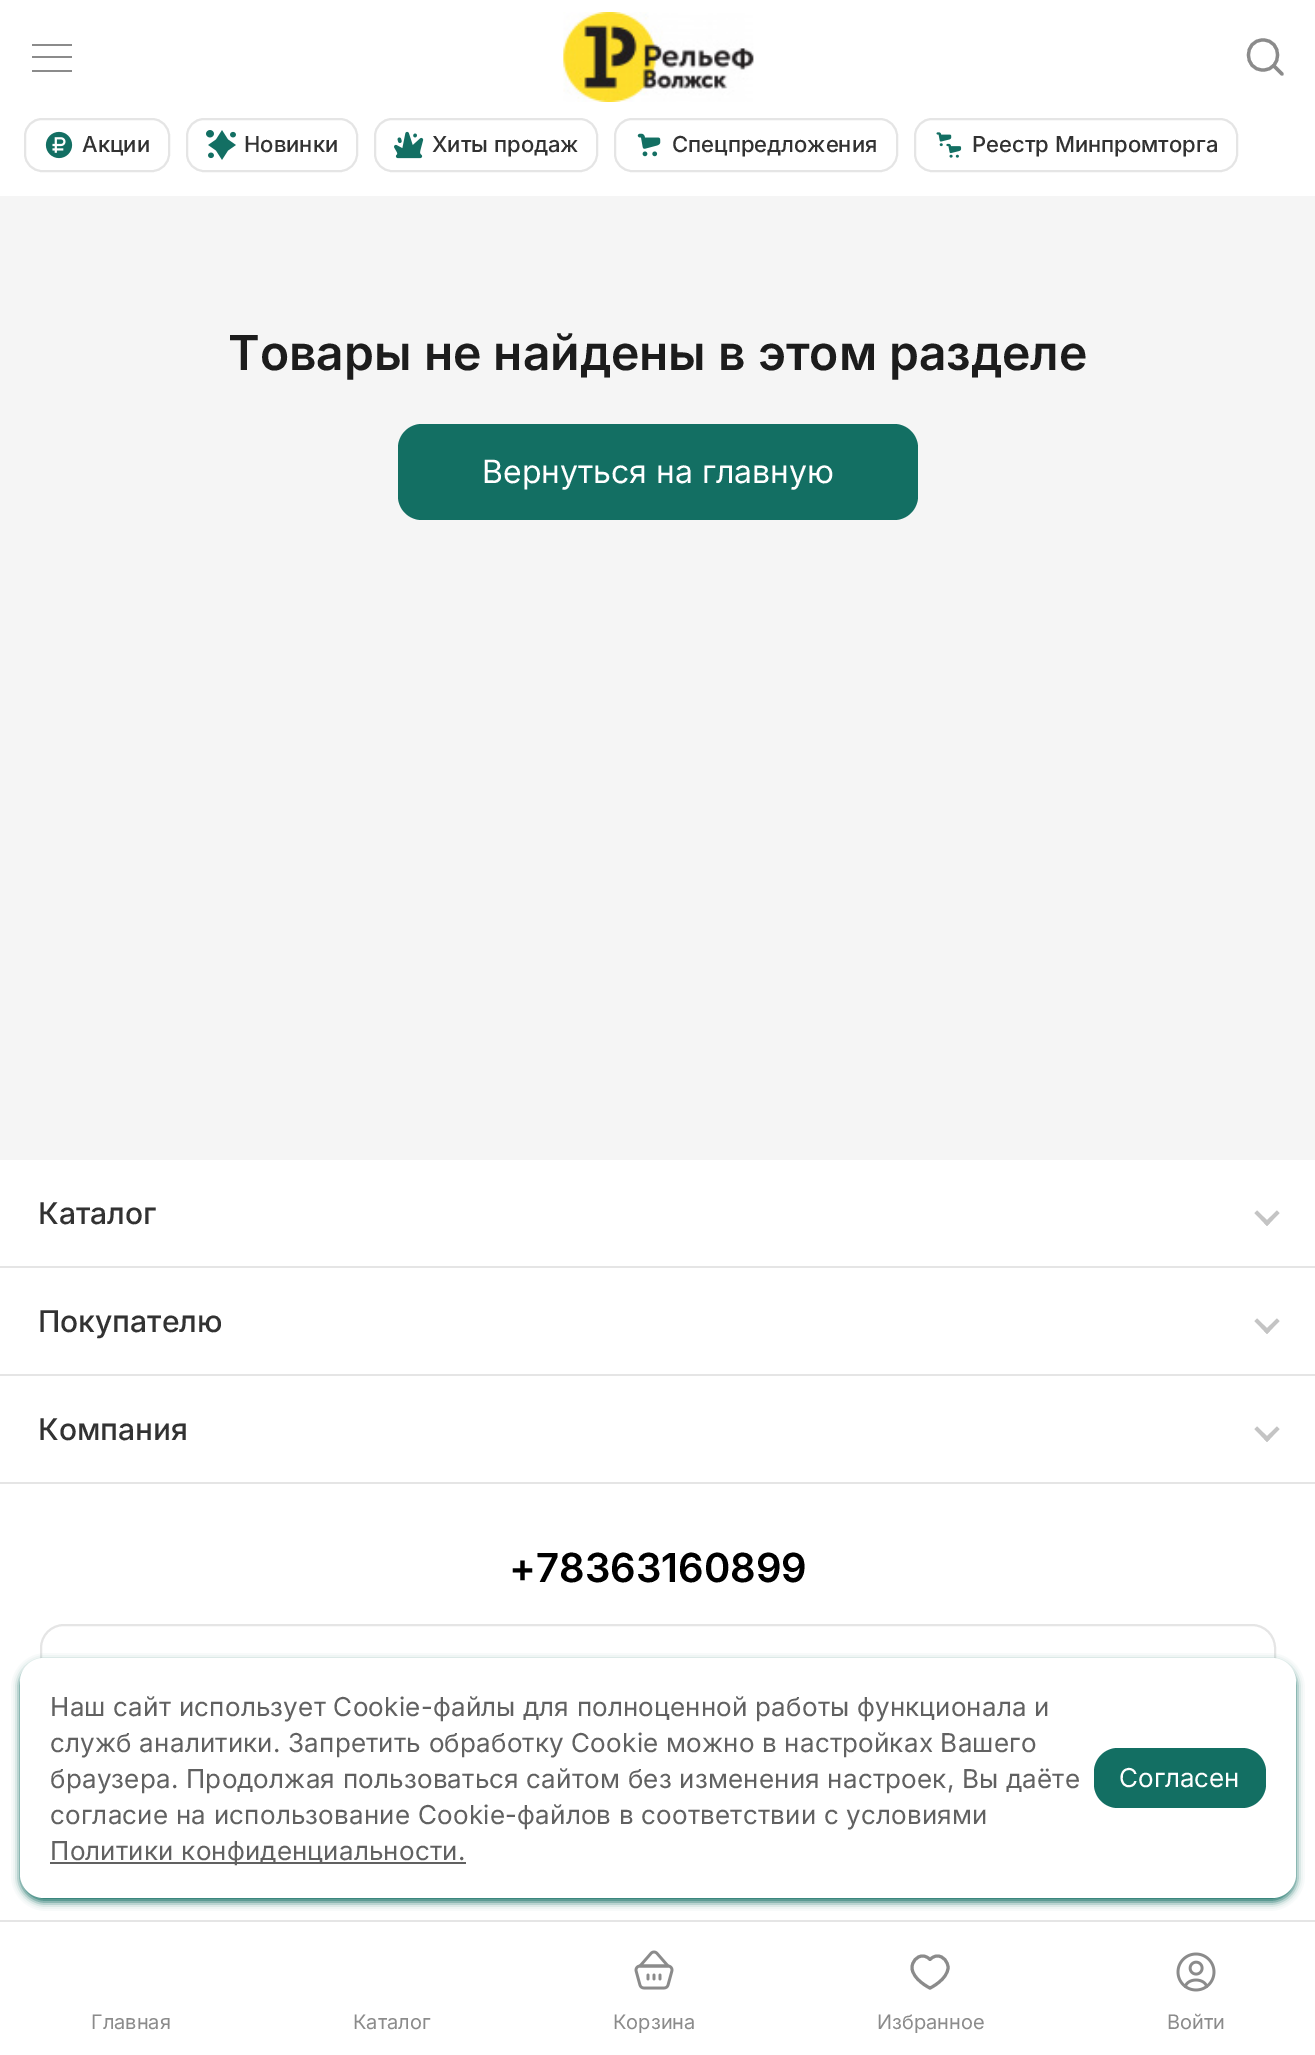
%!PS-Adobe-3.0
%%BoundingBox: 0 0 1315 2055
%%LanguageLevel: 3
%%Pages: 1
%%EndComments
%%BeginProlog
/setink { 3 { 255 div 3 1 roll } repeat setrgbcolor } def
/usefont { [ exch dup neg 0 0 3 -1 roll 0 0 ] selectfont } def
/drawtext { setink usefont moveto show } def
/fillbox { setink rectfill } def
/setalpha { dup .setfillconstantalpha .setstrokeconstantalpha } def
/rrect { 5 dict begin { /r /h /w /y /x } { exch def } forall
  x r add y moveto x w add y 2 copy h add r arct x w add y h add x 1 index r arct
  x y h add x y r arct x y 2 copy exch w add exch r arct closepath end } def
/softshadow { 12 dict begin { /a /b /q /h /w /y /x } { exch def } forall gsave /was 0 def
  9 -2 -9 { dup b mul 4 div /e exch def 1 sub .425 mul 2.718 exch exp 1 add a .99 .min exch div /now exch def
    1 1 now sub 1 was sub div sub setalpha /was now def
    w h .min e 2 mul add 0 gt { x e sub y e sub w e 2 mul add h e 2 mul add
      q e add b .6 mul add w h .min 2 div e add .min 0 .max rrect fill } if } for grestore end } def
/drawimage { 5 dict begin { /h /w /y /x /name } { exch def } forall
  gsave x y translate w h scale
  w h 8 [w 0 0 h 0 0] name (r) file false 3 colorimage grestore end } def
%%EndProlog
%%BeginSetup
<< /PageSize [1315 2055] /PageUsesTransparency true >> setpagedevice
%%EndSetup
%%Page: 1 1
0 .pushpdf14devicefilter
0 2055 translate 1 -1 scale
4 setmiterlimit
0 0 1315 2055 245 245 245 fillbox
0 0 1315 196 255 255 255 fillbox
32 44 40 2 139 139 139 fillbox
32 56 40 2 139 139 139 fillbox
32 70 40 2 139 139 139 fillbox
(assets/img1.rgb) 563 12 191 90 drawimage
3.2 setlinewidth
1 setlinecap
1 setlinejoin
1263 70 moveto 1282.5 70 1282.5 40 1263 40 curveto 1243.5 40 1243.5 70 1263 70 curveto closepath 1282 74 moveto 1273.5 65.5 lineto stroke
229 229 229 setink
2 setlinewidth
0 setlinecap
0 setlinejoin
25 119 144 52 17 rrect stroke
(assets/img2.rgb) 45 131 28 28 drawimage
(Акции) 82 152 /Inter-Medium 22 50 50 50 drawtext
229 229 229 setink
187 119 170 52 17 rrect stroke
(assets/img3.rgb) 206 130 30 30 drawimage
(Новинки) 244 152 /Inter-Medium 22 50 50 50 drawtext
229 229 229 setink
375 119 222 52 17 rrect stroke
(assets/img4.rgb) 394 131 30 28 drawimage
(Хиты продаж) 432 152 /Inter-Medium 22 50 50 50 drawtext
229 229 229 setink
615 119 282 52 17 rrect stroke
(assets/img5.rgb) 637 133 24 24 drawimage
(Спецпредложения) 672 152 /Inter-Medium 22 50 50 50 drawtext
229 229 229 setink
915 119 322 52 17 rrect stroke
(assets/img6.rgb) 936 132 26 26 drawimage
(Реестр Минпромторга) 972 152 /Inter-Medium 22 50 50 50 drawtext
(Товары не найдены в этом разделе) 228 370 /Inter-SemiBold 48 28 28 28 drawtext
19 111 99 setink
398 424 520 96 24 rrect fill
(Вернуться на главную) 482 483 /Inter-Regular 32 255 255 255 drawtext
0 1160 1315 760 255 255 255 fillbox
0 1266 1315 2 229 229 229 fillbox
(Каталог) 38 1224 /Inter-Medium 30 50 50 50 drawtext
196 196 196 setink
1267 1226 moveto 1254.5 1213 lineto 1257 1210.5 lineto 1270 1223 lineto closepath fill
1267 1226 moveto 1264 1223 lineto 1277 1210.5 lineto 1279.5 1213 lineto closepath fill
0 1374 1315 2 229 229 229 fillbox
(Покупателю) 38 1332 /Inter-Medium 30 50 50 50 drawtext
196 196 196 setink
1267 1334 moveto 1254.5 1321 lineto 1257 1318.5 lineto 1270 1331 lineto closepath fill
1267 1334 moveto 1264 1331 lineto 1277 1318.5 lineto 1279.5 1321 lineto closepath fill
0 1482 1315 2 229 229 229 fillbox
(Компания) 38 1440 /Inter-Medium 30 50 50 50 drawtext
196 196 196 setink
1267 1442 moveto 1254.5 1429 lineto 1257 1426.5 lineto 1270 1439 lineto closepath fill
1267 1442 moveto 1264 1439 lineto 1277 1426.5 lineto 1279.5 1429 lineto closepath fill
(+78363160899) 509 1582 /Inter-SemiBold 40 0 0 0 drawtext
229 229 229 setink
41 1625 1234 78 23 rrect stroke
19 111 99 setink
20 1662 1276 240 24 4 1 softshadow
255 255 255 setink
20 1658 1276 240 24 rrect fill
/Inter-Regular 26 usefont
97 97 97 setink
50 1716 moveto 0.2 0 (Наш сайт использует Сookie-файлы для полноценной работы функционала и) ashow
50 1752 moveto 0.2 0 (служб аналитики. Запретить обработку Cookie можно в настройках Вашего) ashow
50 1788 moveto 0.2 0 (браузера. Продолжая пользоваться сайтом без изменения настроек, Вы даёте) ashow
50 1824 moveto 0.2 0 (согласие на использование Cookie-файлов в соответствии с условиями) ashow
50 1862 416 2 97 97 97 fillbox
50 1860 moveto 0.2 0 (Политики конфиденциальности.) ashow
19 111 99 setink
1094 1748 172 60 24 rrect fill
(Согласен) 1119 1787 /Inter-Regular 26 255 255 255 drawtext
0 1922 1315 133 255 255 255 fillbox
0 1920 1315 2 229 229 229 fillbox
(Главная) 91 2029 /Inter-Regular 20 139 139 139 drawtext
(Каталог) 353 2029 /Inter-Regular 20 139 139 139 drawtext
(assets/img7.rgb) 634 1950 40 40 drawimage
(Корзина) 613 2029 /Inter-Regular 20 139 139 139 drawtext
3 setlinewidth
1 setlinecap
1 setlinejoin
937.5 1956 moveto 943.5 1956 948 1962 948 1967.5 curveto 948 1979 930.5 1988 930 1988 curveto 929.5 1988 912 1979 912 1967.5 curveto 912 1962 916.5 1956 922.5 1956 curveto 926 1956 928.5 1958 930 1959.5 curveto 931.5 1958 934 1956 937.5 1956 curveto closepath stroke
(Избранное) 877 2029 /Inter-Regular 20 139 139 139 drawtext
(assets/img8.rgb) 1176 1952 40 40 drawimage
(Войти) 1167 2029 /Inter-Regular 20 139 139 139 drawtext
.poppdf14devicefilter showpage
%%EOF
